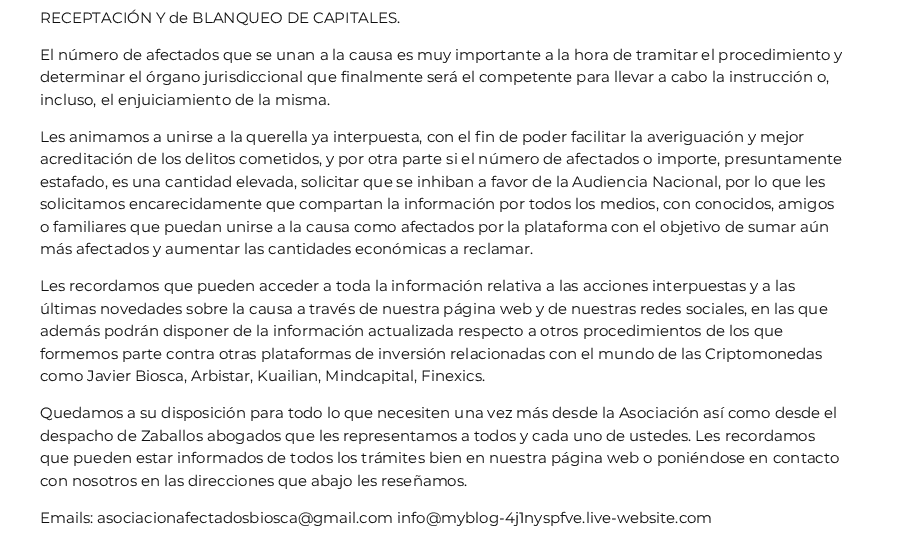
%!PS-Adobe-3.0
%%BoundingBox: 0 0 904 549
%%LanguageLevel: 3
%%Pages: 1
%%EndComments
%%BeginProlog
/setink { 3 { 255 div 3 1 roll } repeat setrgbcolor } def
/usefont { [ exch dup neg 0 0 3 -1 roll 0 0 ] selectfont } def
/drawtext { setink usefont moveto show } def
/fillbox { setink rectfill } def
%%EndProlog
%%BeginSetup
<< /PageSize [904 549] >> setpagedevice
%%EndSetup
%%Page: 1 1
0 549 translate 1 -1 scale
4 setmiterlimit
0 0 904 549 255 255 255 fillbox
(RECEPTACIÓN Y de BLANQUEO DE CAPITALES.) 40 23 /Montserrat-Regular 15 15 15 15 drawtext
(El número de afectados que se unan a la causa es muy importante a la hora de tramitar el procedimiento y) 40 60 /Montserrat-Regular 15 15 15 15 drawtext
(determinar el órgano jurisdiccional que finalmente será el competente para llevar a cabo la instrucción o,) 40 82 /Montserrat-Regular 15 15 15 15 drawtext
(incluso, el enjuiciamiento de la misma.) 40 105 /Montserrat-Regular 15 15 15 15 drawtext
(Les animamos a unirse a la querella ya interpuesta, con el fin de poder facilitar la averiguación y mejor) 40 142 /Montserrat-Regular 15 15 15 15 drawtext
(acreditación de los delitos cometidos, y por otra parte si el número de afectados o importe, presuntamente) 40 164 /Montserrat-Regular 15 15 15 15 drawtext
(estafado, es una cantidad elevada, solicitar que se inhiban a favor de la Audiencia Nacional, por lo que les) 40 187 /Montserrat-Regular 15 15 15 15 drawtext
(solicitamos encarecidamente que compartan la información por todos los medios, con conocidos, amigos) 40 209 /Montserrat-Regular 15 15 15 15 drawtext
(o familiares que puedan unirse a la causa como afectados por la plataforma con el objetivo de sumar aún) 40 232 /Montserrat-Regular 15 15 15 15 drawtext
(más afectados y aumentar las cantidades económicas a reclamar.) 40 254 /Montserrat-Regular 15 15 15 15 drawtext
(Les recordamos que pueden acceder a toda la información relativa a las acciones interpuestas y a las) 40 291 /Montserrat-Regular 15 15 15 15 drawtext
(últimas novedades sobre la causa a través de nuestra página web y de nuestras redes sociales, en las que) 40 314 /Montserrat-Regular 15 15 15 15 drawtext
(además podrán disponer de la información actualizada respecto a otros procedimientos de los que) 40 336 /Montserrat-Regular 15 15 15 15 drawtext
(formemos parte contra otras plataformas de inversión relacionadas con el mundo de las Criptomonedas) 40 359 /Montserrat-Regular 15 15 15 15 drawtext
(como Javier Biosca, Arbistar, Kuailian, Mindcapital, Finexics.) 40 381 /Montserrat-Regular 15 15 15 15 drawtext
(Quedamos a su disposición para todo lo que necesiten una vez más desde la Asociación así como desde el) 40 418 /Montserrat-Regular 15 15 15 15 drawtext
(despacho de Zaballos abogados que les representamos a todos y cada uno de ustedes. Les recordamos) 40 441 /Montserrat-Regular 15 15 15 15 drawtext
(que pueden estar informados de todos los trámites bien en nuestra página web o poniéndose en contacto) 40 463 /Montserrat-Regular 15 15 15 15 drawtext
(con nosotros en las direcciones que abajo les reseñamos.) 40 486 /Montserrat-Regular 15 15 15 15 drawtext
(Emails: asociacionafectadosbiosca@gmail.com info@myblog-4j1nyspfve.live-website.com) 40 523 /Montserrat-Regular 15 15 15 15 drawtext
showpage
%%EOF
